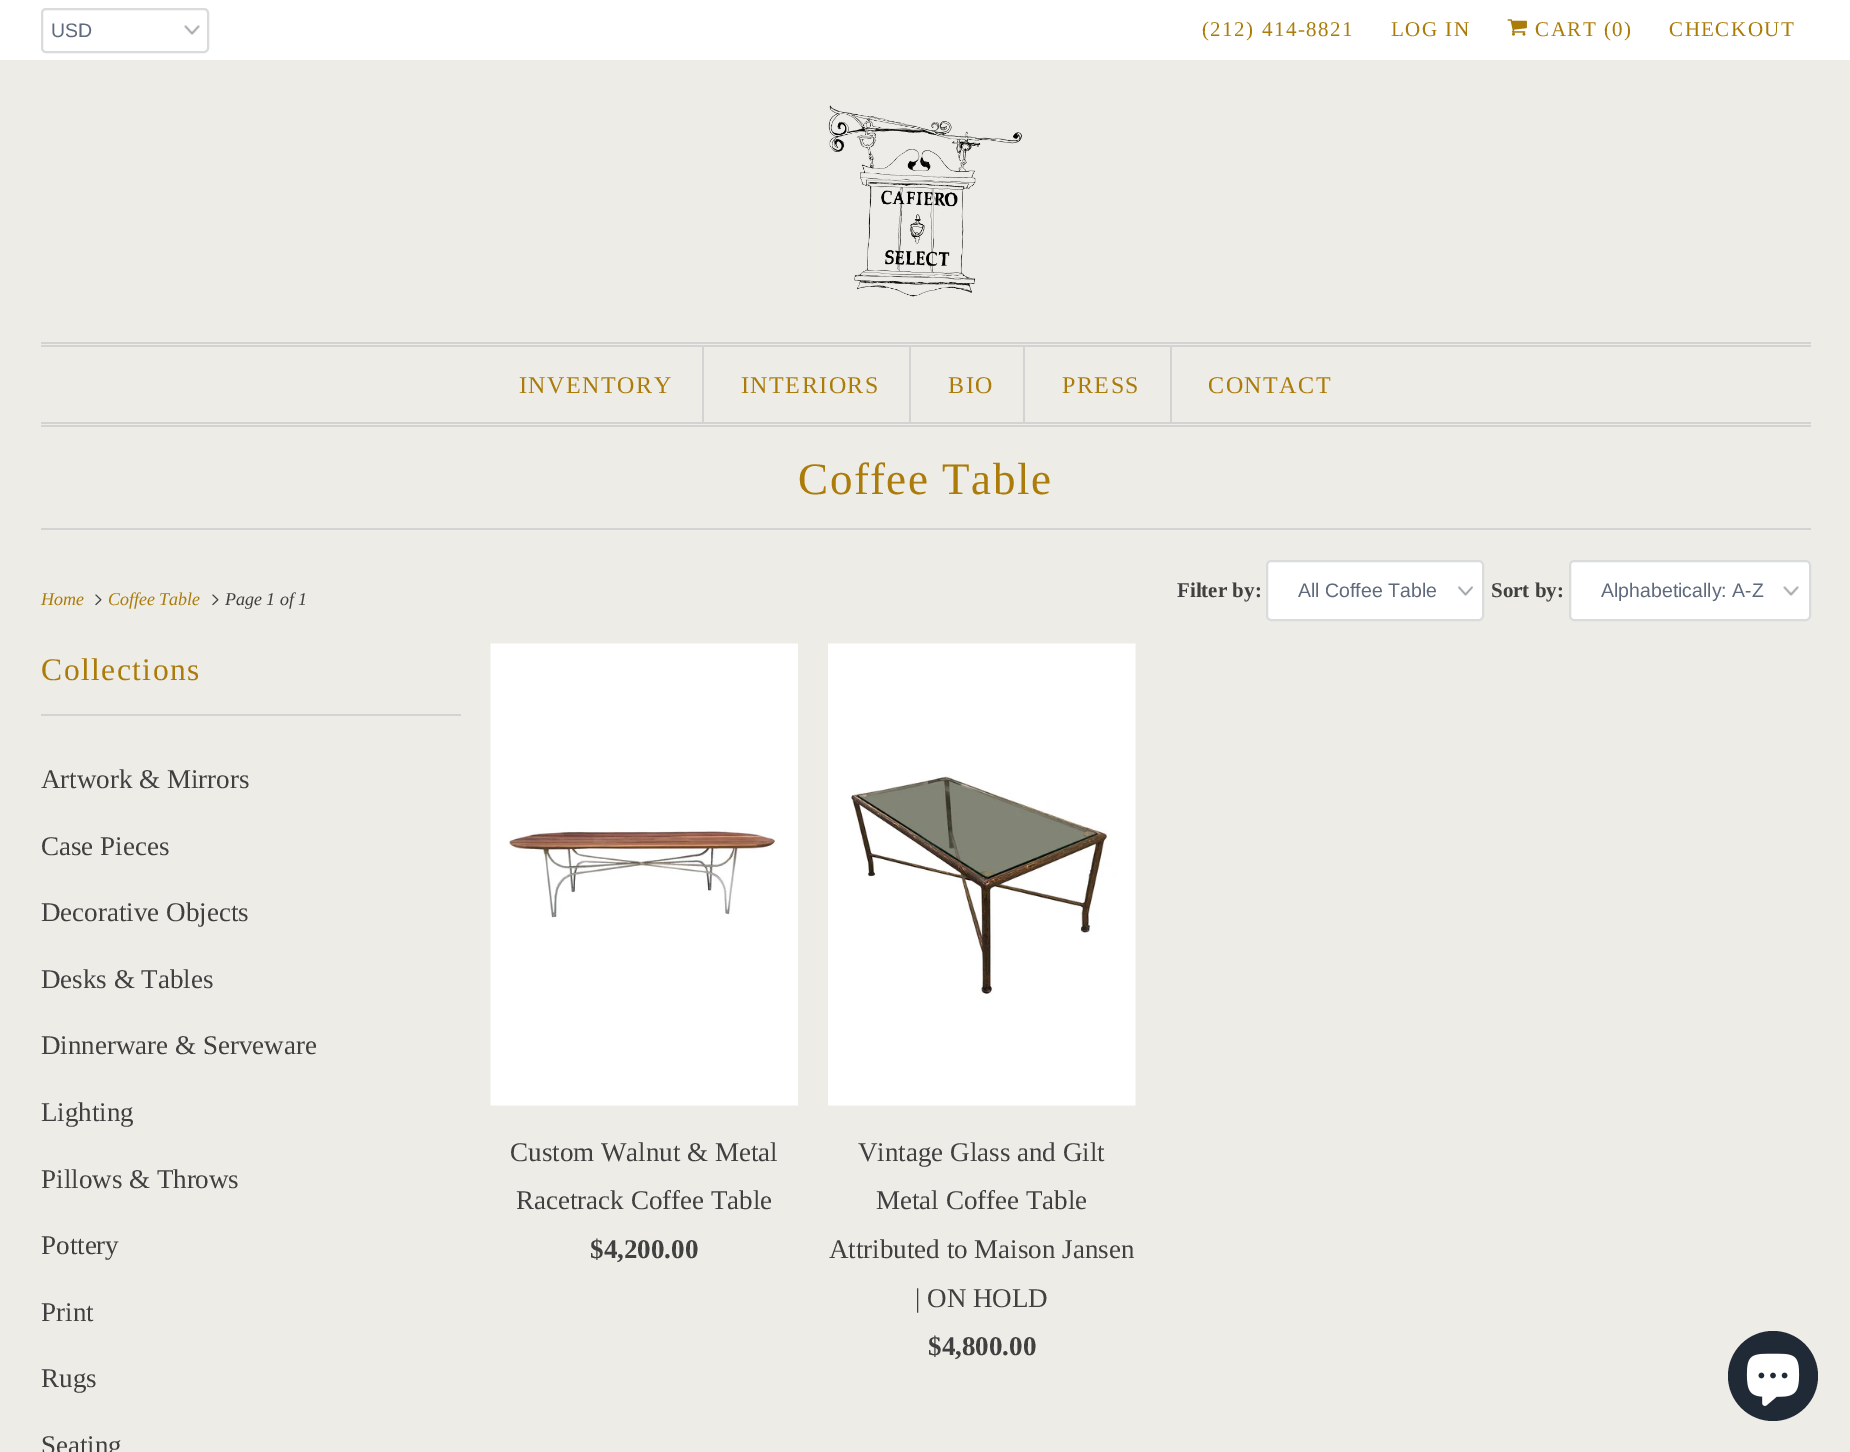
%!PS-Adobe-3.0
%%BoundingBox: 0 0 1850 1452
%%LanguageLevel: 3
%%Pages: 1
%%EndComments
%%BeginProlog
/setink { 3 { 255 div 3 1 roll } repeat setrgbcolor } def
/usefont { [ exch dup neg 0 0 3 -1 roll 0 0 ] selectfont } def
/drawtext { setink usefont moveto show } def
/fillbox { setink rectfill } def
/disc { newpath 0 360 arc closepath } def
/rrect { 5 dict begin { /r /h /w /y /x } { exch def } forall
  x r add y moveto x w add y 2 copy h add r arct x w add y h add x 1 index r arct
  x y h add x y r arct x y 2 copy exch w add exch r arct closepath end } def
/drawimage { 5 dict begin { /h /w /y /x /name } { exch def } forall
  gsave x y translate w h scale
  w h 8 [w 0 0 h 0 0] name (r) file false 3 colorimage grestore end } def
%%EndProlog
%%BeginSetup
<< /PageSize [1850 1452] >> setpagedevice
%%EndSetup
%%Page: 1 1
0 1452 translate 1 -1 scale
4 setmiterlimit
0 0 1850 1452 237 236 231 fillbox
0 0 1850 60 255 255 255 fillbox
(assets/img1.rgb) 184 25 16 10 drawimage
217 219 220 setink
2 setlinewidth
42 9 166 43 4 rrect stroke
(USD) 51 37 /LiberationSans-Regular 19.5 95 106 125 drawtext
/LiberationSerif-Regular 21 usefont
172 124 10 setink
1202 36 moveto 1.5 0 (\(212\) 414-8821) ashow
1391 36 moveto 1.5 0 (LOG IN) ashow
(assets/img2.rgb) 1507 19 20 17 drawimage
1535 36 moveto 1.5 0 (CART \(0\)) ashow
1669 36 moveto 1.5 0 (CHECKOUT) ashow
(assets/img3.rgb) 828 105 195 192 drawimage
41 342 1770 2 211 211 211 fillbox
41 345 1770 2 211 211 211 fillbox
41 422 1770 2 211 211 211 fillbox
41 425 1770 2 211 211 211 fillbox
702 347 2 75 211 211 211 fillbox
/LiberationSerif-Regular 24 usefont
172 124 10 setink
519 393 moveto 1.5 0 (INVENTORY) ashow
909 347 2 75 211 211 211 fillbox
172 124 10 setink
741 393 moveto 1.5 0 (INTERIORS) ashow
1023 347 2 75 211 211 211 fillbox
172 124 10 setink
948 393 moveto 1.5 0 (BIO) ashow
1170 347 2 75 211 211 211 fillbox
172 124 10 setink
1062 393 moveto 1.5 0 (PRESS) ashow
1208 393 moveto 1.5 0 (CONTACT) ashow
41 528 1770 2 211 211 211 fillbox
/LiberationSerif-Regular 45 usefont
172 124 10 setink
798 494 moveto 1.5 0 (Coffee Table) ashow
(Home) 41 605 /LiberationSerif-Italic 18 172 124 10 drawtext
(assets/img4.rgb) 95 594 7 12 drawimage
(Coffee Table) 108 605 /LiberationSerif-Italic 18 172 124 10 drawtext
(assets/img4.rgb) 212 594 7 12 drawimage
(Page 1 of 1) 225 605 /LiberationSerif-Italic 18 64 64 64 drawtext
(Filter by:) 1177 597 /LiberationSerif-Bold 21 64 64 64 drawtext
255 255 255 setink
1266 560 218 61 5 rrect fill
(assets/img5.rgb) 1458 586 15 10 drawimage
217 219 220 setink
1267 561 216 59 4 rrect stroke
(All Coffee Table) 1298 597 /LiberationSans-Regular 19.5 95 106 125 drawtext
(Sort by:) 1491 597 /LiberationSerif-Bold 21 64 64 64 drawtext
255 255 255 setink
1569 560 242 61 5 rrect fill
(assets/img1.rgb) 1783 586 16 10 drawimage
217 219 220 setink
1570 561 240 59 4 rrect stroke
(Alphabetically: A-Z) 1601 597 /LiberationSans-Regular 19.5 95 106 125 drawtext
41 714 420 2 211 211 211 fillbox
/LiberationSerif-Regular 31.5 usefont
172 124 10 setink
41 680 moveto 1.5 0 (Collections) ashow
(Artwork & Mirrors) 41 788 /LiberationSerif-Regular 27 64 64 64 drawtext
(Case Pieces) 41 855 /LiberationSerif-Regular 27 64 64 64 drawtext
(Decorative Objects) 41 921 /LiberationSerif-Regular 27 64 64 64 drawtext
(Desks & Tables) 41 988 /LiberationSerif-Regular 27 64 64 64 drawtext
(Dinnerware & Serveware) 41 1054 /LiberationSerif-Regular 27 64 64 64 drawtext
(Lighting) 41 1121 /LiberationSerif-Regular 27 64 64 64 drawtext
(Pillows & Throws) 41 1188 /LiberationSerif-Regular 27 64 64 64 drawtext
(Pottery) 41 1254 /LiberationSerif-Regular 27 64 64 64 drawtext
(Print) 41 1321 /LiberationSerif-Regular 27 64 64 64 drawtext
(Rugs) 41 1387 /LiberationSerif-Regular 27 64 64 64 drawtext
(Seating) 41 1454 /LiberationSerif-Regular 27 64 64 64 drawtext
(assets/img6.rgb) 490 643 308 463 drawimage
(Custom Walnut & Metal) 510 1161 /LiberationSerif-Regular 27 64 64 64 drawtext
(Racetrack Coffee Table) 516 1209 /LiberationSerif-Regular 27 64 64 64 drawtext
($4,200.00) 590 1258 /LiberationSerif-Bold 27 64 64 64 drawtext
(assets/img7.rgb) 828 643 308 463 drawimage
(Vintage Glass and Gilt) 858 1161 /LiberationSerif-Regular 27 64 64 64 drawtext
(Metal Coffee Table) 876 1209 /LiberationSerif-Regular 27 64 64 64 drawtext
(Attributed to Maison Jansen) 829 1258 /LiberationSerif-Regular 27 64 64 64 drawtext
(| ON HOLD) 915 1307 /LiberationSerif-Regular 27 64 64 64 drawtext
($4,800.00) 928 1355 /LiberationSerif-Bold 27 64 64 64 drawtext
32 42 54 setink
1773 1376 45 disc fill
(assets/img8.rgb) 1746 1353 54 53 drawimage
showpage
%%EOF
